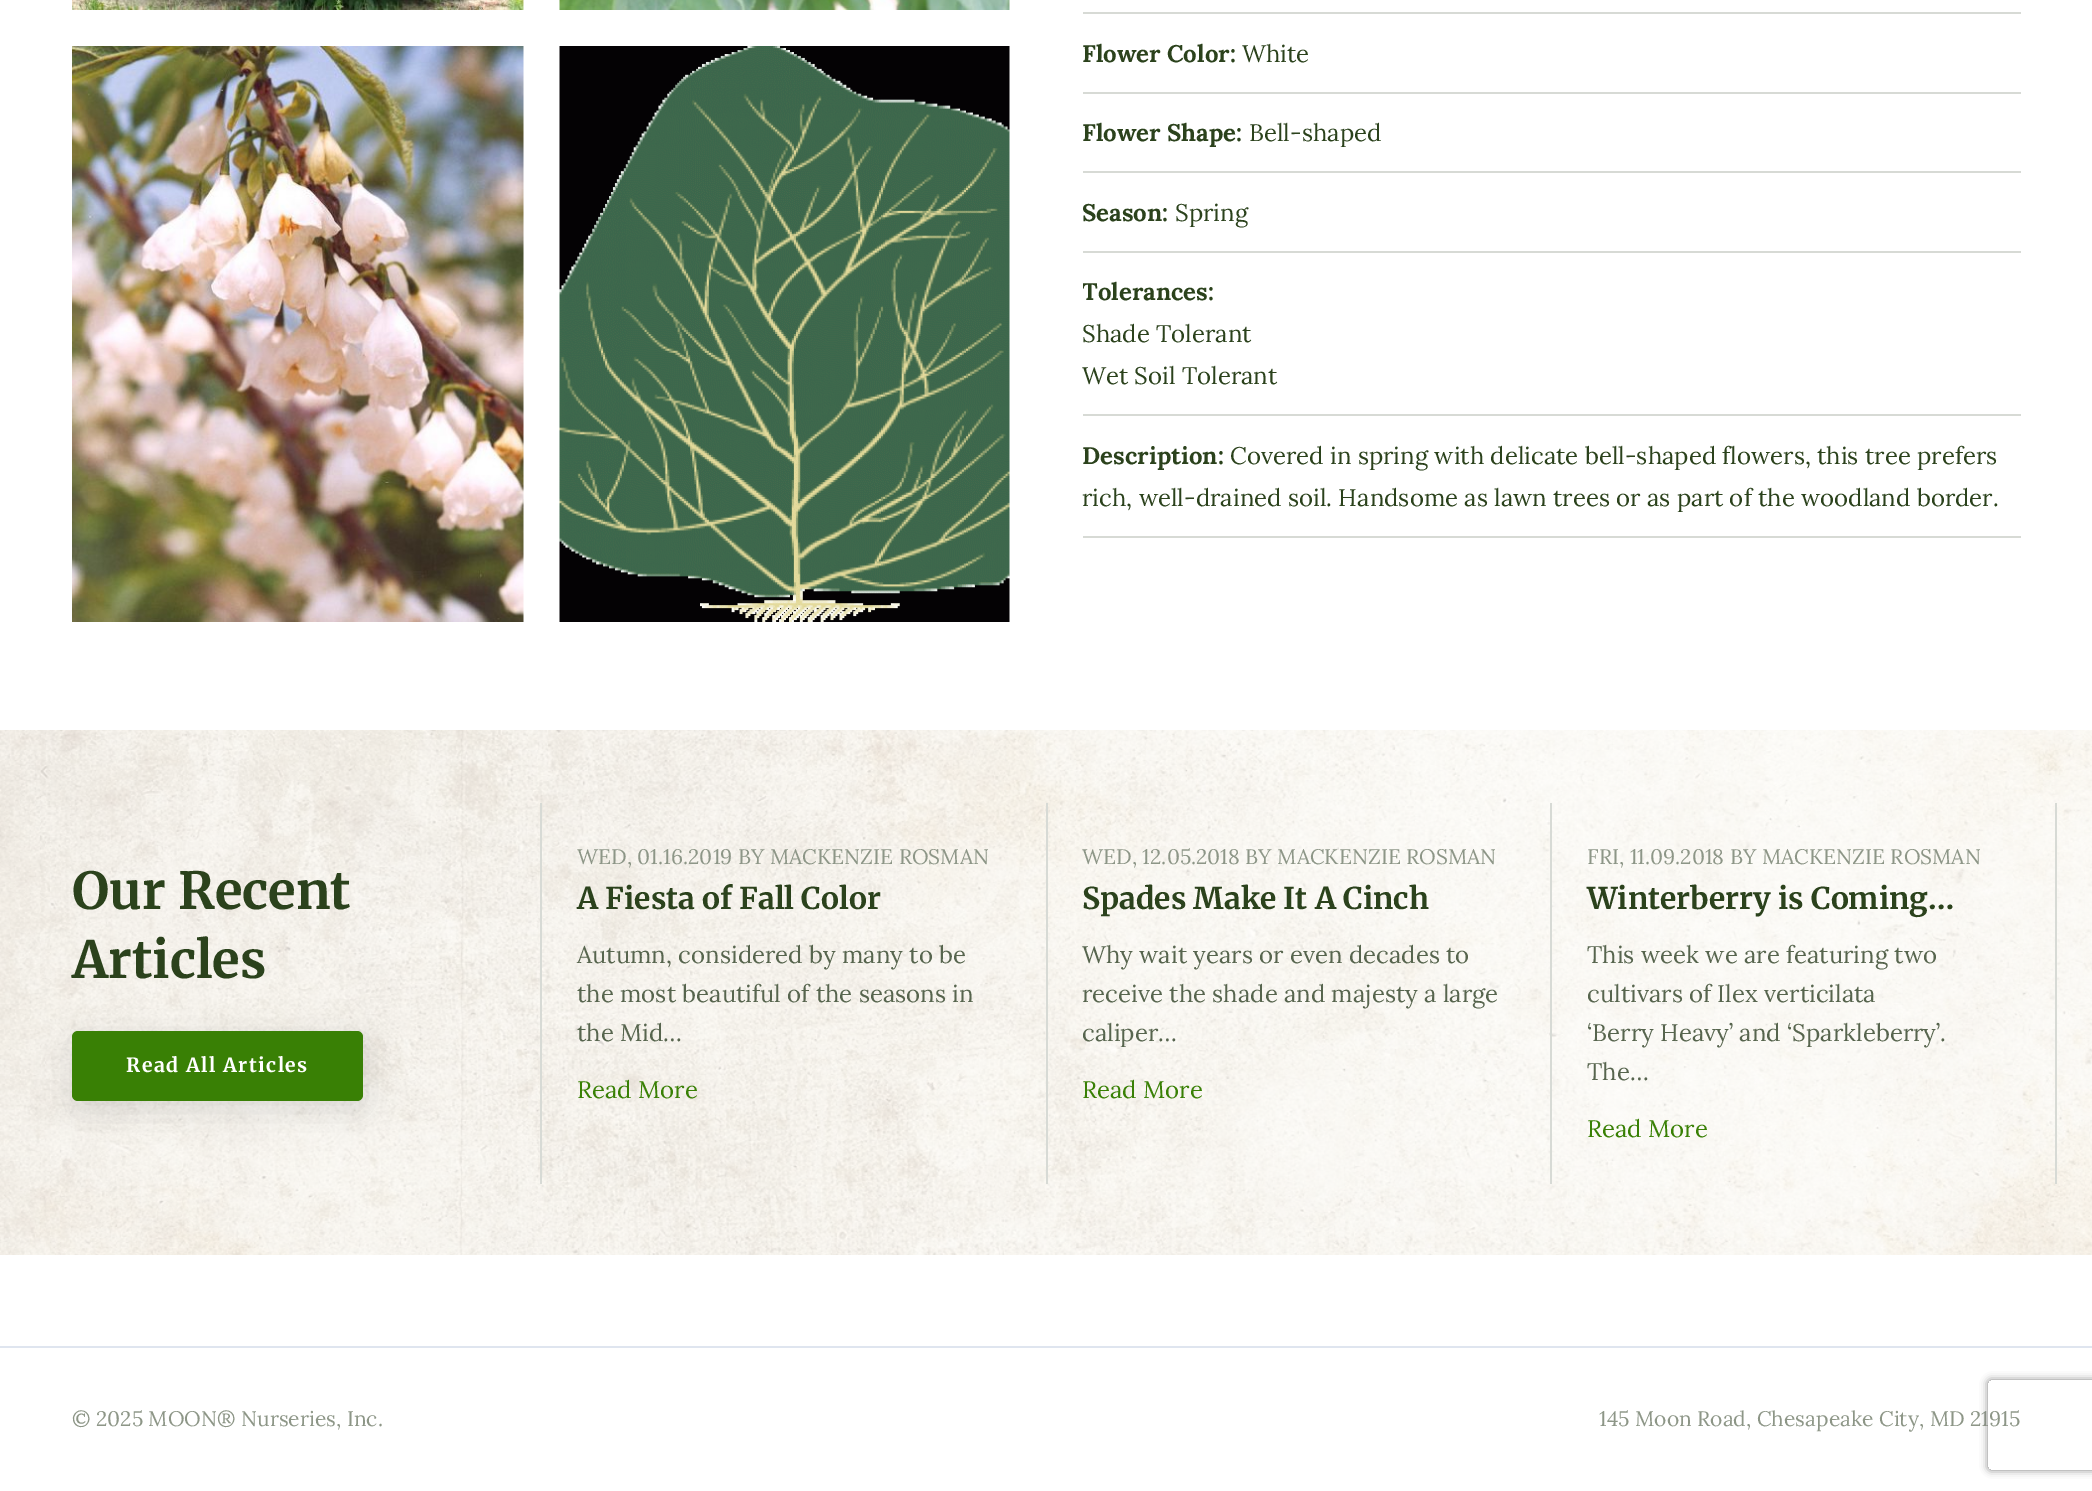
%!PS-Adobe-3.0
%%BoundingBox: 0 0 2092 1491
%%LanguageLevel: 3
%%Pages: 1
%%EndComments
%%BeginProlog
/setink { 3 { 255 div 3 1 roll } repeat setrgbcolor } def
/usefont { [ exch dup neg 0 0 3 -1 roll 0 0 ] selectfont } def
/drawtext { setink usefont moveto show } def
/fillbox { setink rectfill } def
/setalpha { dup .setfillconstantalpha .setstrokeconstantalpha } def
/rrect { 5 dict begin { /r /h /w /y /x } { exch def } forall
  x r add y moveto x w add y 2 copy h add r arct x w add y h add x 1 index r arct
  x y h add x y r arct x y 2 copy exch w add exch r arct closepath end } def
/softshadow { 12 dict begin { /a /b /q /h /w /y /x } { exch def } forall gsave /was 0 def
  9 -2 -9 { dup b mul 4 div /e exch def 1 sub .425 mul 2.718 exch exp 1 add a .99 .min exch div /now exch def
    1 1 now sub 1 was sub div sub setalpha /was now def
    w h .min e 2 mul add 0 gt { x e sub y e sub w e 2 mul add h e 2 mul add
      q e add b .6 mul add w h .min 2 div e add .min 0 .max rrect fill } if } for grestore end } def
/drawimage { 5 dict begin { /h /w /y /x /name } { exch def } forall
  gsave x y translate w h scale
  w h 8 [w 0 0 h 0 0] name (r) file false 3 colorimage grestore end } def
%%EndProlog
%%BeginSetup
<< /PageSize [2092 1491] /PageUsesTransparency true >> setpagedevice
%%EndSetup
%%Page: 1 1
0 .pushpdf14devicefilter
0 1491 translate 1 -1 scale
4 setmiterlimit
0 0 2092 1491 255 255 255 fillbox
(assets/img1.rgb) 72 0 452 10 drawimage
(assets/img2.rgb) 559 0 451 10 drawimage
(assets/img3.rgb) 72 46 452 576 drawimage
(assets/img4.rgb) 559 46 451 576 drawimage
1083 12 938 2 215 218 213 fillbox
1083 92 938 2 215 218 213 fillbox
(Flower Color:) 1082 62 /Lora-Bold 24 43 66 28 drawtext
(White) 1242 62 /Lora-Regular 24 43 66 28 drawtext
1083 171 938 2 215 218 213 fillbox
(Flower Shape:) 1082 141 /Lora-Bold 24 43 66 28 drawtext
(Bell-shaped) 1249 141 /Lora-Regular 24 43 66 28 drawtext
1083 251 938 2 215 218 213 fillbox
(Season:) 1082 221 /Lora-Bold 24 43 66 28 drawtext
(Spring) 1175 221 /Lora-Regular 24 43 66 28 drawtext
1083 414 938 2 215 218 213 fillbox
gsave
1083 0 938 573 rectclip
(Tolerances:) 1082 300 /Lora-Bold 24 43 66 28 drawtext
grestore
(Shade Tolerant) 1082 342 /Lora-Regular 24 43 66 28 drawtext
(Wet Soil Tolerant) 1082 384 /Lora-Regular 24 43 66 28 drawtext
1083 536 938 2 215 218 213 fillbox
(Description:) 1082 464 /Lora-Bold 24 43 66 28 drawtext
(Covered in spring with delicate bell-shaped flowers, this tree prefers) 1230 464 /Lora-Regular 24 43 66 28 drawtext
(rich, well-drained soil. Handsome as lawn trees or as part of the woodland border.) 1082 506 /Lora-Regular 24 43 66 28 drawtext
(assets/img5.rgb) 0 730 2092 525 drawimage
540 803 2 381 215 218 213 fillbox
(Our Recent) 72 909 /Merriweather-Bold 51 43 66 28 drawtext
(Articles) 72 978 /Merriweather-Bold 51 43 66 28 drawtext
0 0 0 setink
74 1040 291 70 6 18 0.12 softshadow
57 128 5 setink
72 1031 291 70 6 rrect fill
/Merriweather-Bold 19.5 usefont
255 255 255 setink
126 1072 moveto 1.5 0 (Read All Articles) ashow
1046 803 2 381 215 218 213 fillbox
(WED, 01.16.2019 BY MACKENZIE ROSMAN) 577 864 /Lora-Regular 21 141 150 135 drawtext
(A Fiesta of Fall Color) 577 909 /Merriweather-Bold 30 43 66 28 drawtext
(Autumn, considered by many to be) 577 963 /Lora-Regular 24 87 101 78 drawtext
(the most beautiful of the seasons in) 577 1002 /Lora-Regular 24 87 101 78 drawtext
(the Mid…) 577 1041 /Lora-Regular 24 87 101 78 drawtext
(Read More) 577 1098 /Lora-Regular 24 57 128 5 drawtext
1550 803 2 381 215 218 213 fillbox
(WED, 12.05.2018 BY MACKENZIE ROSMAN) 1082 864 /Lora-Regular 21 141 150 135 drawtext
(Spades Make It A Cinch) 1082 909 /Merriweather-Bold 30 43 66 28 drawtext
(Why wait years or even decades to) 1082 963 /Lora-Regular 24 87 101 78 drawtext
(receive the shade and majesty a large) 1082 1002 /Lora-Regular 24 87 101 78 drawtext
(caliper…) 1082 1041 /Lora-Regular 24 87 101 78 drawtext
(Read More) 1082 1098 /Lora-Regular 24 57 128 5 drawtext
2055 803 2 381 215 218 213 fillbox
(FRI, 11.09.2018 BY MACKENZIE ROSMAN) 1587 864 /Lora-Regular 21 141 150 135 drawtext
(Winterberry is Coming…) 1587 909 /Merriweather-Bold 30 43 66 28 drawtext
(This week we are featuring two) 1587 963 /Lora-Regular 24 87 101 78 drawtext
(cultivars of Ilex verticilata) 1587 1002 /Lora-Regular 24 87 101 78 drawtext
(‘Berry Heavy’ and ‘Sparkleberry’.) 1587 1041 /Lora-Regular 24 87 101 78 drawtext
(The…) 1587 1080 /Lora-Regular 24 87 101 78 drawtext
(Read More) 1587 1137 /Lora-Regular 24 57 128 5 drawtext
0 1346 2092 2 223 229 239 fillbox
(© 2025 MOON® Nurseries, Inc.) 72 1426 /Lora-Regular 21 141 150 135 drawtext
(145 Moon Road, Chesapeake City, MD 21915) 1599 1426 /Lora-Regular 21 141 150 135 drawtext
gsave
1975 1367 moveto 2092 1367 lineto 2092 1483 lineto 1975 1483 lineto closepath 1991 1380 moveto 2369 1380 lineto 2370.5 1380 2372 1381.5 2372 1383 curveto 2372 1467 lineto 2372 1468.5 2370.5 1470 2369 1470 curveto 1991 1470 lineto 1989.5 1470 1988 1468.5 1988 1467 curveto 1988 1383 lineto 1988 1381.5 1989.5 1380 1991 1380 curveto closepath eoclip newpath
128 128 128 setink
1988 1380 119 90 3 4 1 softshadow
grestore
.poppdf14devicefilter showpage
%%EOF
